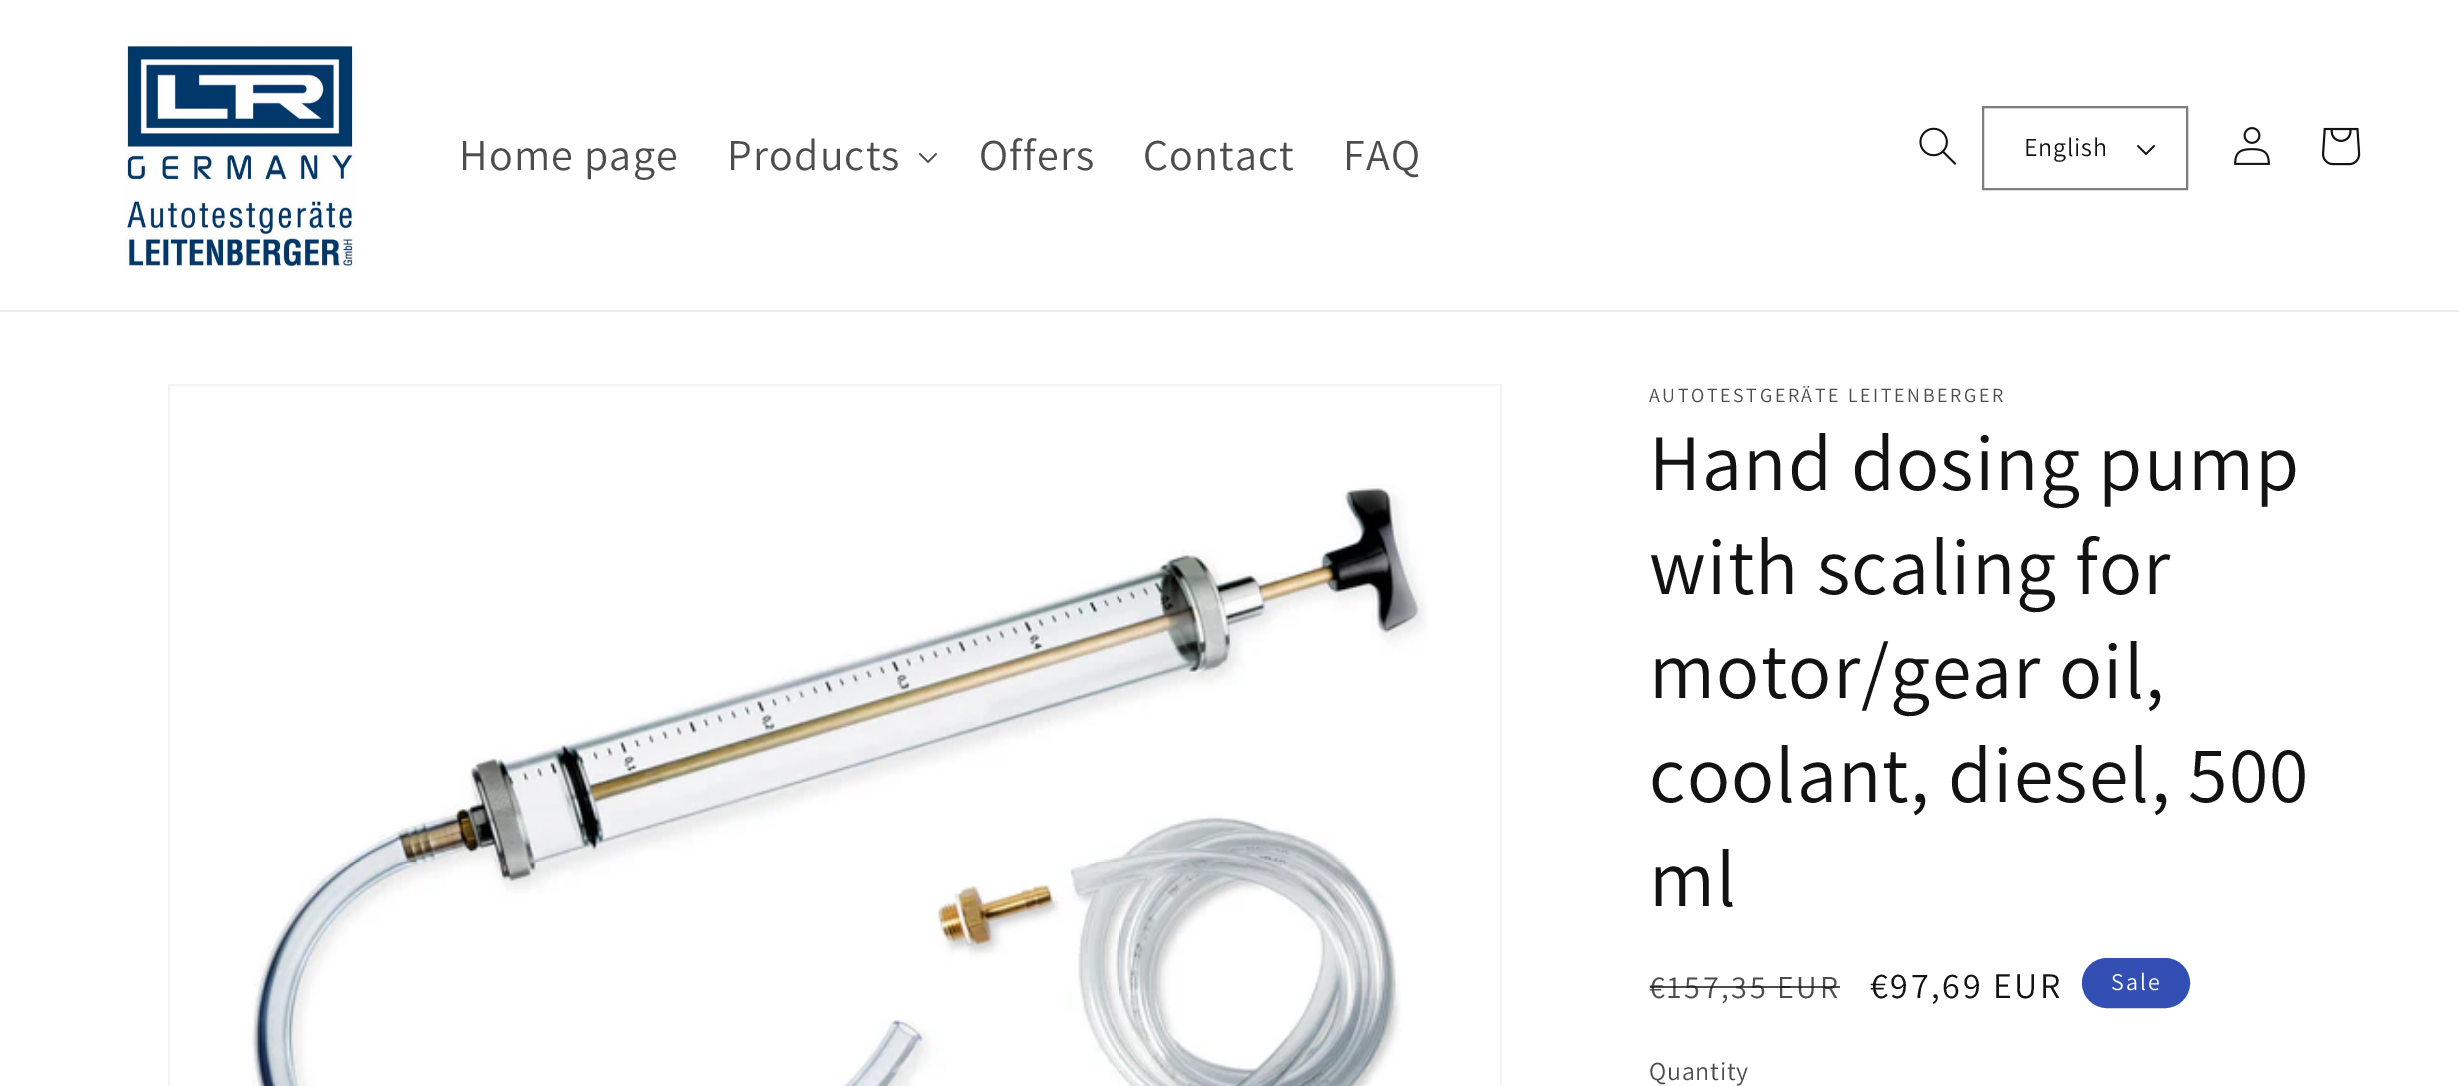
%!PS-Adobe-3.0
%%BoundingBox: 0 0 2459 1086
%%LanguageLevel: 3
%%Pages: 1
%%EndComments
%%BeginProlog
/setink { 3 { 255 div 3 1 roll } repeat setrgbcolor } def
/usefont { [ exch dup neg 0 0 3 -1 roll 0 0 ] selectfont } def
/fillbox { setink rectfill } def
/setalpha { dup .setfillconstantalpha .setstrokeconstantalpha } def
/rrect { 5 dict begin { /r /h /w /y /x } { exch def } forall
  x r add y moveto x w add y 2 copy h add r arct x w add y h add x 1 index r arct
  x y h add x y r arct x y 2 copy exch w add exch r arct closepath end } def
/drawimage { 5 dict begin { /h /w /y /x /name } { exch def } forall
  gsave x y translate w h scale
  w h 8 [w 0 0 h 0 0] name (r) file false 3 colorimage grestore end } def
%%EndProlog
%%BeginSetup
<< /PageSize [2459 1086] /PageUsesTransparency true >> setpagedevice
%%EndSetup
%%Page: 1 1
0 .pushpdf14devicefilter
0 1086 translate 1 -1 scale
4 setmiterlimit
0 0 2459 1086 255 255 255 fillbox
0 310 2459 2 236 236 236 fillbox
(assets/img1.rgb) 124 43 232 224 drawimage
/Assistant-Regular 44 usefont
77 77 77 setink
459 170 moveto 1.2 0 (Home page) ashow
727 170 moveto 1.2 0 (Products) ashow
(assets/img2.rgb) 919 153 18 10 drawimage
979 170 moveto 1.2 0 (Offers) ashow
1143 170 moveto 1.2 0 (Contact) ashow
1343 170 moveto 1.2 0 (FAQ) ashow
(assets/img3.rgb) 1919 127 37 38 drawimage
(assets/img4.rgb) 2137 145 18 10 drawimage
125 125 125 setink
2 setlinewidth
1983 107 204 82 rectstroke
/Assistant-Regular 26 usefont
18 18 18 setink
2024 156 moveto 0.75 0 (English) ashow
(assets/img5.rgb) 2234 127 36 38 drawimage
(assets/img6.rgb) 2322 127 39 39 drawimage
243 243 243 setink
169 385 1332 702 rectstroke
(assets/img7.rgb) 248 484 1180 602 drawimage
/Assistant-Regular 20 usefont
77 77 77 setink
1649 402 moveto 2.6 0 (AUTOTESTGERÄTE LEITENBERGER) ashow
/Assistant-Regular 80 usefont
18 18 18 setink
1649 490 moveto 1.2 0 (Hand dosing pump) ashow
1649 594 moveto 1.2 0 (with scaling for) ashow
1649 698 moveto 1.2 0 (motor/gear oil,) ashow
1649 802 moveto 1.2 0 (coolant, diesel, 500) ashow
1649 906 moveto 1.2 0 (ml) ashow
/Assistant-Regular 32 usefont
77 77 77 setink
1649 998 moveto 2.6 0 (€157,35 EUR) ashow
0.75 setalpha
1650 986 190 2 18 18 18 fillbox
/Assistant-Regular 36 usefont
1 setalpha
1870 998 moveto 2.6 0 (€97,69 EUR) ashow
51 79 180 setink
2083 959 106 48 24 rrect gsave fill grestore
stroke
/Assistant-Regular 24 usefont
255 255 255 setink
2111 990 moveto 2 0 (Sale) ashow
/Assistant-Regular 26 usefont
77 77 77 setink
1649 1080 moveto 0.75 0 (Quantity) ashow
.poppdf14devicefilter showpage
%%EOF
